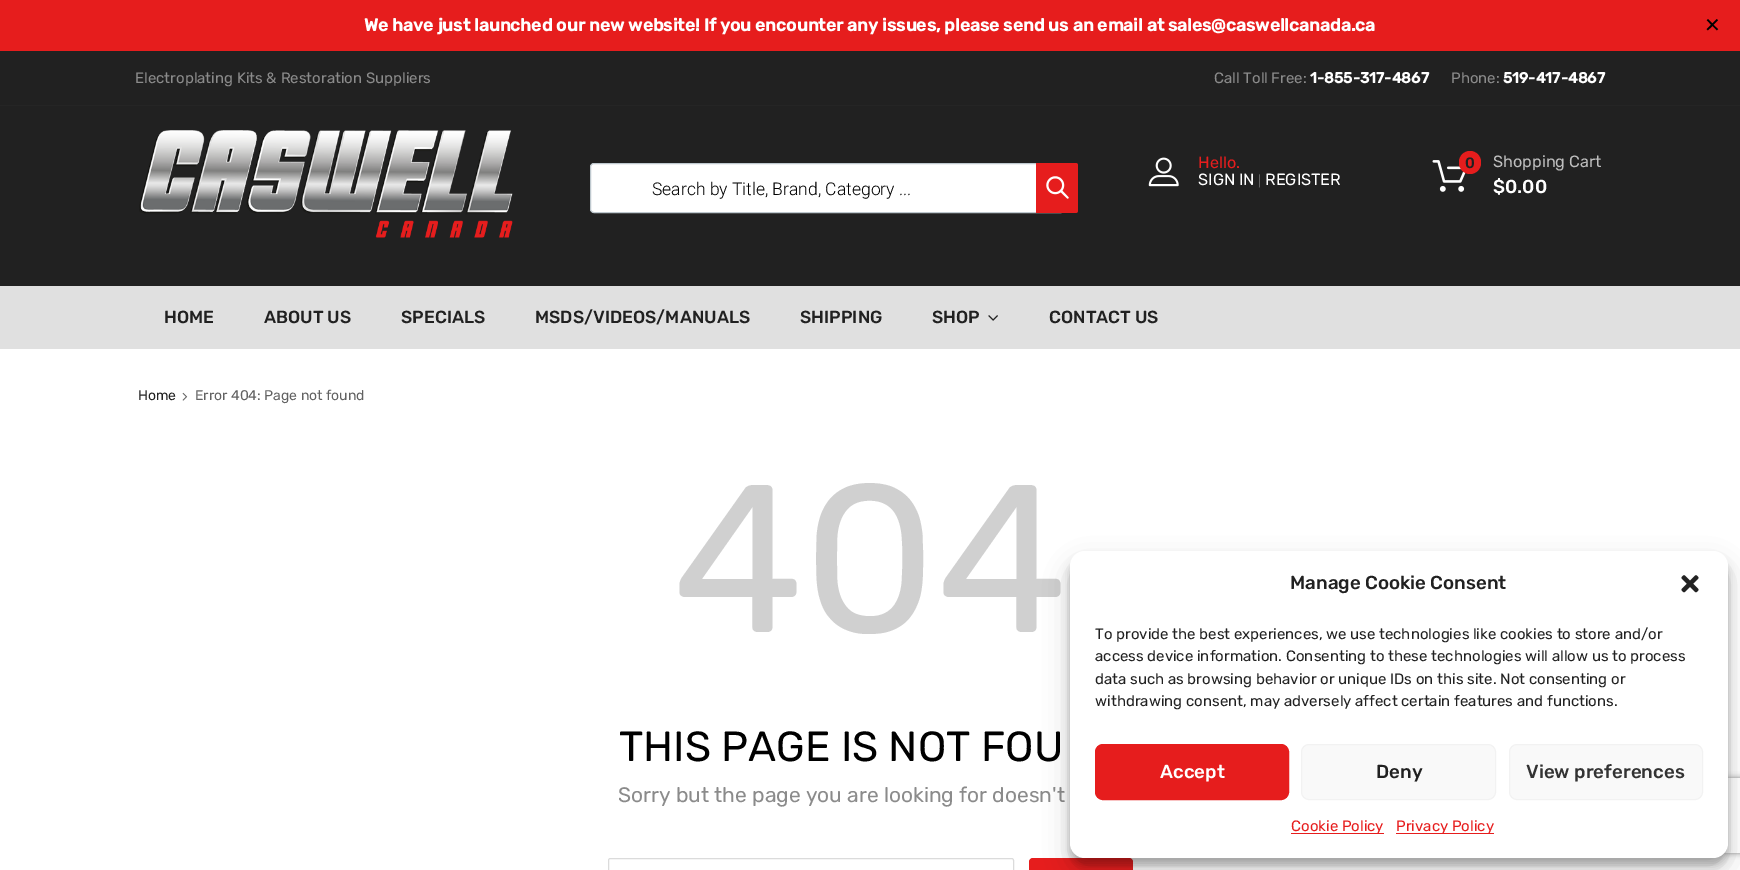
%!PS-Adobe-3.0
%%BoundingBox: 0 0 1740 870
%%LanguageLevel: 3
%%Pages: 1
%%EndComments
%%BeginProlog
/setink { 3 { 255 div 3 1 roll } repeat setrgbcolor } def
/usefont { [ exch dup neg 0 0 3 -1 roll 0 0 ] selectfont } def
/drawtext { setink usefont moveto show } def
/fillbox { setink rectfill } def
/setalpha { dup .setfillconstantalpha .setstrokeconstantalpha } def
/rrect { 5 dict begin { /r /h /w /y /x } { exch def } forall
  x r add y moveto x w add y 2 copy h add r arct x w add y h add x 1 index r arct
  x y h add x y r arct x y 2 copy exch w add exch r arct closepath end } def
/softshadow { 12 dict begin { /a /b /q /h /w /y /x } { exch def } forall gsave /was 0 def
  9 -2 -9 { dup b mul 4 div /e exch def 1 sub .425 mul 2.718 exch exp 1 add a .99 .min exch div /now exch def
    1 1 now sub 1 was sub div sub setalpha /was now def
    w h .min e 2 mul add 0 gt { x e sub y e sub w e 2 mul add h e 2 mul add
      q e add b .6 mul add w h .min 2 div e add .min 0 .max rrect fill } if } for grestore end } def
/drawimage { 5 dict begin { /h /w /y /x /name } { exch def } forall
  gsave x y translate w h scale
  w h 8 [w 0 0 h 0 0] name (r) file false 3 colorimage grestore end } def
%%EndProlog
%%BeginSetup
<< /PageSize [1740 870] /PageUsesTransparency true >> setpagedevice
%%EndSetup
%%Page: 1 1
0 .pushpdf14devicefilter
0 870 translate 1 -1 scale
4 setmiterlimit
0 0 1740 870 255 255 255 fillbox
0 0 1740 51 230 29 29 fillbox
(We have just launched our new website! If you encounter any issues, please send us an email at sales@caswellcanada.ca) 364 31 /Rubik-Bold 17.5 255 255 255 drawtext
(✕) 1704 32 /DejaVuSans-Regular 20 0 0 0 drawtext
0 51 1740 235 33 33 33 fillbox
0 105 1740 1 37 37 37 fillbox
(Electroplating Kits & Restoration Suppliers) 135 83 /Rubik-Light 15 139 139 139 drawtext
(Call Toll Free:) 1214 83 /Rubik-Light 15 139 139 139 drawtext
(1-855-317-4867) 1310 83 /Rubik-Bold 15 255 255 255 drawtext
(Phone:) 1451 83 /Rubik-Light 15 139 139 139 drawtext
(519-417-4867) 1503 83 /Rubik-Bold 15 255 255 255 drawtext
(assets/img1.rgb) 139 130 374 108 drawimage
(assets/img2.rgb) 1148 157 31 30 drawimage
(Hello.) 1198 168 /Rubik-Light 16.25 230 29 29 drawtext
(SIGN IN) 1198 185 /Rubik-Light 16.25 255 255 255 drawtext
(|) 1258 185 /Rubik-Light 12 98 98 98 drawtext
(REGISTER) 1265 185 /Rubik-Light 16.25 255 255 255 drawtext
(assets/img3.rgb) 1432 160 34 32 drawimage
230 29 29 setink
1459 151 22 23 11 rrect fill
(0) 1465 168 /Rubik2-Light 15 33 33 33 drawtext
(Shopping Cart) 1493 167 /Rubik-Light 16.25 189 189 189 drawtext
($0.00) 1493 193 /Rubik2-Light 18.75 255 255 255 drawtext
590.5 163.5 474 49 3.5 rrect gsave fill grestore
190 200 206 setink
stroke
(Search by Title, Brand, Category ...) 652 195 /Roboto-Light 17.5 0 0 0 drawtext
230 29 29 setink
1036 163 moveto 1075.5 163 lineto 1077 163 1078 164 1078 165.5 curveto 1078 210.5 lineto 1078 212 1077 213 1075.5 213 curveto 1036 213 lineto closepath fill
(assets/img4.rgb) 1046 176 23 23 drawimage
0 286 1740 63 224 224 224 fillbox
(HOME) 164 323 /Rubik2-Light 17.5 33 33 33 drawtext
(ABOUT US) 264 323 /Rubik2-Light 17.5 33 33 33 drawtext
(SPECIALS) 401 323 /Rubik2-Light 17.5 33 33 33 drawtext
(MSDS/VIDEOS/MANUALS) 535 323 /Rubik2-Light 17.5 33 33 33 drawtext
(SHIPPING) 800 323 /Rubik2-Light 17.5 33 33 33 drawtext
(SHOP) 932 323 /Rubik2-Light 17.5 33 33 33 drawtext
(assets/img5.rgb) 988 315 10 6 drawimage
(CONTACT US) 1049 323 /Rubik2-Light 17.5 33 33 33 drawtext
(Home) 138 400 /Rubik-Light 14 33 33 33 drawtext
(assets/img6.rgb) 182 392 6 9 drawimage
(Error 404: Page not found) 195 400 /Rubik-Light 14 98 98 98 drawtext
(404) 673 632 /Rubik-Light 210 208 208 208 drawtext
(THIS PAGE IS NOT FOU) 619 761 /Rubik-Light 42 0 0 0 drawtext
(Sorry but the page you are looking for doesn't) 618 802 /Rubik-Light 21 139 139 139 drawtext
219 219 219 setink
608.5 858.5 405 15 2 rrect stroke
230 29 29 setink
1029 858 104 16 4 rrect fill
0 0 0 setink
1070 559 658 306 15 4 0.23 softshadow
1070 564 658 306 15 12.5 0.19 softshadow
gsave
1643 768 moveto 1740 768 lineto 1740 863 lineto 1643 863 lineto closepath 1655.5 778 moveto 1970.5 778 lineto 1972 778 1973 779 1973 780.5 curveto 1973 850.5 lineto 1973 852 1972 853 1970.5 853 curveto 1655.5 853 lineto 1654 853 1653 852 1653 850.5 curveto 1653 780.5 lineto 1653 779 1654 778 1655.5 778 curveto closepath eoclip newpath
128 128 128 setink
1653 778 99 75 2.5 3 1 softshadow
grestore
255 255 255 setink
1070 551 658 307 15 rrect fill
(Manage Cookie Consent) 1290 589 /Rubik2-Light 18.75 33 33 33 drawtext
(assets/img7.rgb) 1681 575 18 18 drawimage
(To provide the best experiences, we use technologies like cookies to store and/or) 1095 639 /Rubik-Light 15 33 33 33 drawtext
(access device information. Consenting to these technologies will allow us to process) 1095 661 /Rubik-Light 15 33 33 33 drawtext
(data such as browsing behavior or unique IDs on this site. Not consenting or) 1095 684 /Rubik-Light 15 33 33 33 drawtext
(withdrawing consent, may adversely affect certain features and functions.) 1095 706 /Rubik-Light 15 33 33 33 drawtext
230 29 29 setink
1095.5 744.5 193 55 7.5 rrect gsave fill grestore
stroke
(Accept) 1160 778 /Rubik2-Light 18.75 255 255 255 drawtext
249 249 249 setink
1301.5 744.5 194 55 7.5 rrect gsave fill grestore
242 242 242 setink
stroke
(Deny) 1376 778 /Rubik2-Light 18.75 33 33 33 drawtext
249 249 249 setink
1509.5 744.5 193 55 7.5 rrect gsave fill grestore
242 242 242 setink
stroke
(View preferences) 1526 778 /Rubik2-Light 18.75 51 51 51 drawtext
1291 833 93 1 230 29 29 fillbox
(Cookie Policy) 1291 831 /Rubik-Light 15 230 29 29 drawtext
1396 833 98 1 230 29 29 fillbox
(Privacy Policy) 1396 831 /Rubik-Light 15 230 29 29 drawtext
.poppdf14devicefilter showpage
%%EOF
